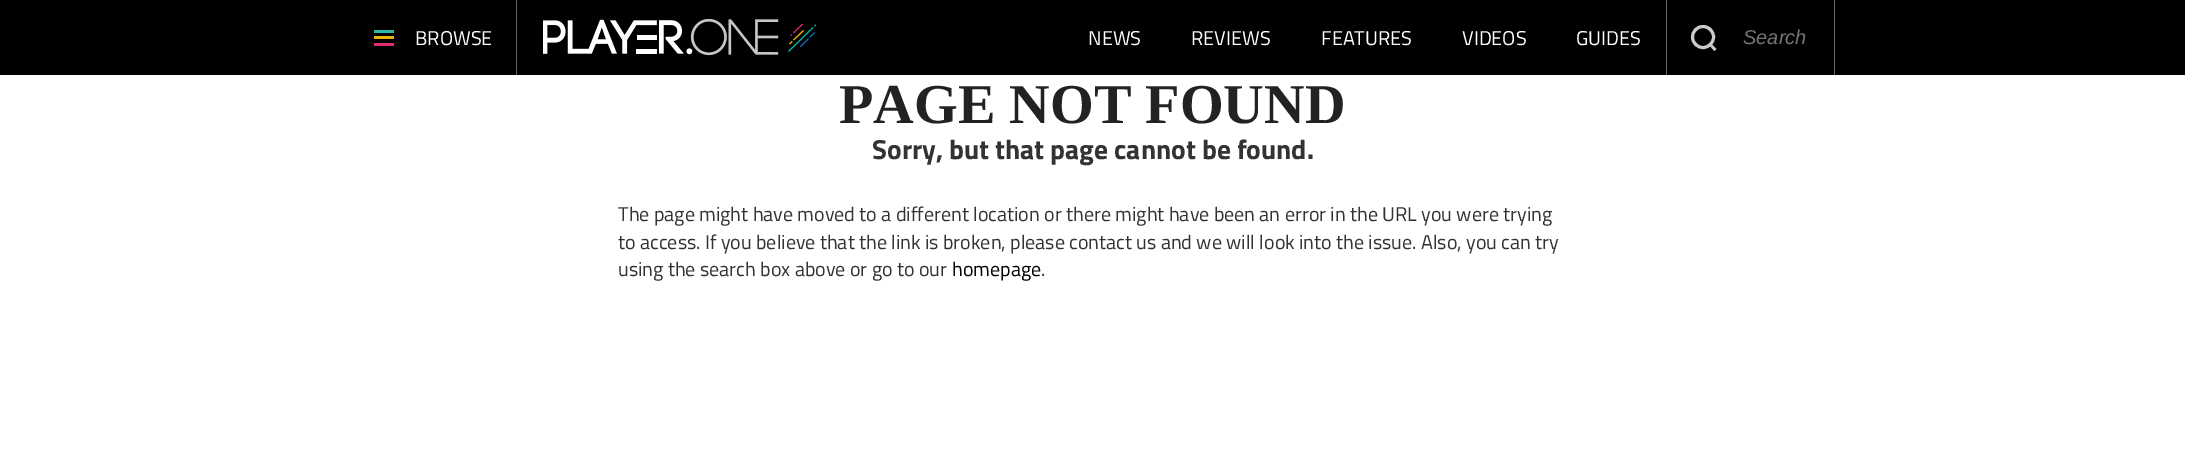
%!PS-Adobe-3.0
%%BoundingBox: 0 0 2185 456
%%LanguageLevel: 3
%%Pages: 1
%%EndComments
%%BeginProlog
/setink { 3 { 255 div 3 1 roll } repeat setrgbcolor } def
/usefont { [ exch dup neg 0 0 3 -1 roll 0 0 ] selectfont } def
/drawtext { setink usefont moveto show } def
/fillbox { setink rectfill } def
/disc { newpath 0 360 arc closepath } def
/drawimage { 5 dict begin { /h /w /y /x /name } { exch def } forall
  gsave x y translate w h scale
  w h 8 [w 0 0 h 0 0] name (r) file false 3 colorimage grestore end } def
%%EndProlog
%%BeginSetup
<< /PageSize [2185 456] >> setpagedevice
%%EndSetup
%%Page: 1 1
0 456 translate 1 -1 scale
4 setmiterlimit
0 0 2185 456 255 255 255 fillbox
0 0 2185 75 0 0 0 fillbox
516 0 1 75 102 102 102 fillbox
374 36 20 3 237 177 7 fillbox
374 30 20 3 43 184 168 fillbox
374 43 20 3 220 44 116 fillbox
(BROWSE) 415 45 /TitilliumWeb-Regular 20 255 255 255 drawtext
(assets/img1.rgb) 543 19 273 37 drawimage
(NEWS) 1088 45 /TitilliumWeb-Regular 20 255 255 255 drawtext
(REVIEWS) 1191 45 /TitilliumWeb-Regular 20 255 255 255 drawtext
(FEATURES) 1321 45 /TitilliumWeb-Regular 20 255 255 255 drawtext
(VIDEOS) 1462 45 /TitilliumWeb-Regular 20 255 255 255 drawtext
(GUIDES) 1576 45 /TitilliumWeb-Regular 20 255 255 255 drawtext
1834 0 1 75 102 102 102 fillbox
1666 0 1 75 102 102 102 fillbox
204 204 204 setink
3 setlinewidth
1703 37 10.5 disc stroke
1708.5 44.5 moveto 1710.5 43 lineto 1716.5 49 lineto 1714.5 51 lineto closepath fill
(Search) 1743 44 /LiberationSans-Italic 20 117 117 117 drawtext
(PAGE NOT FOUND) 839 123 /LiberationSerif-Bold 56.25 34 34 34 drawtext
(Sorry, but that page cannot be found.) 872 159 /TitilliumWeb-Bold 27.5 51 51 51 drawtext
(The page might have moved to a different location or there might have been an error in the URL you were trying) 618 221 /TitilliumWeb-Regular 20 51 51 51 drawtext
(to access. If you believe that the link is broken, please contact us and we will look into the issue. Also, you can try) 618 249 /TitilliumWeb-Regular 20 51 51 51 drawtext
(using the search box above or go to our) 618 276 /TitilliumWeb-Regular 20 51 51 51 drawtext
(homepage) 952 276 /TitilliumWeb-Regular 20 0 0 0 drawtext
(.) 1041 276 /TitilliumWeb-Regular 20 51 51 51 drawtext
showpage
%%EOF
